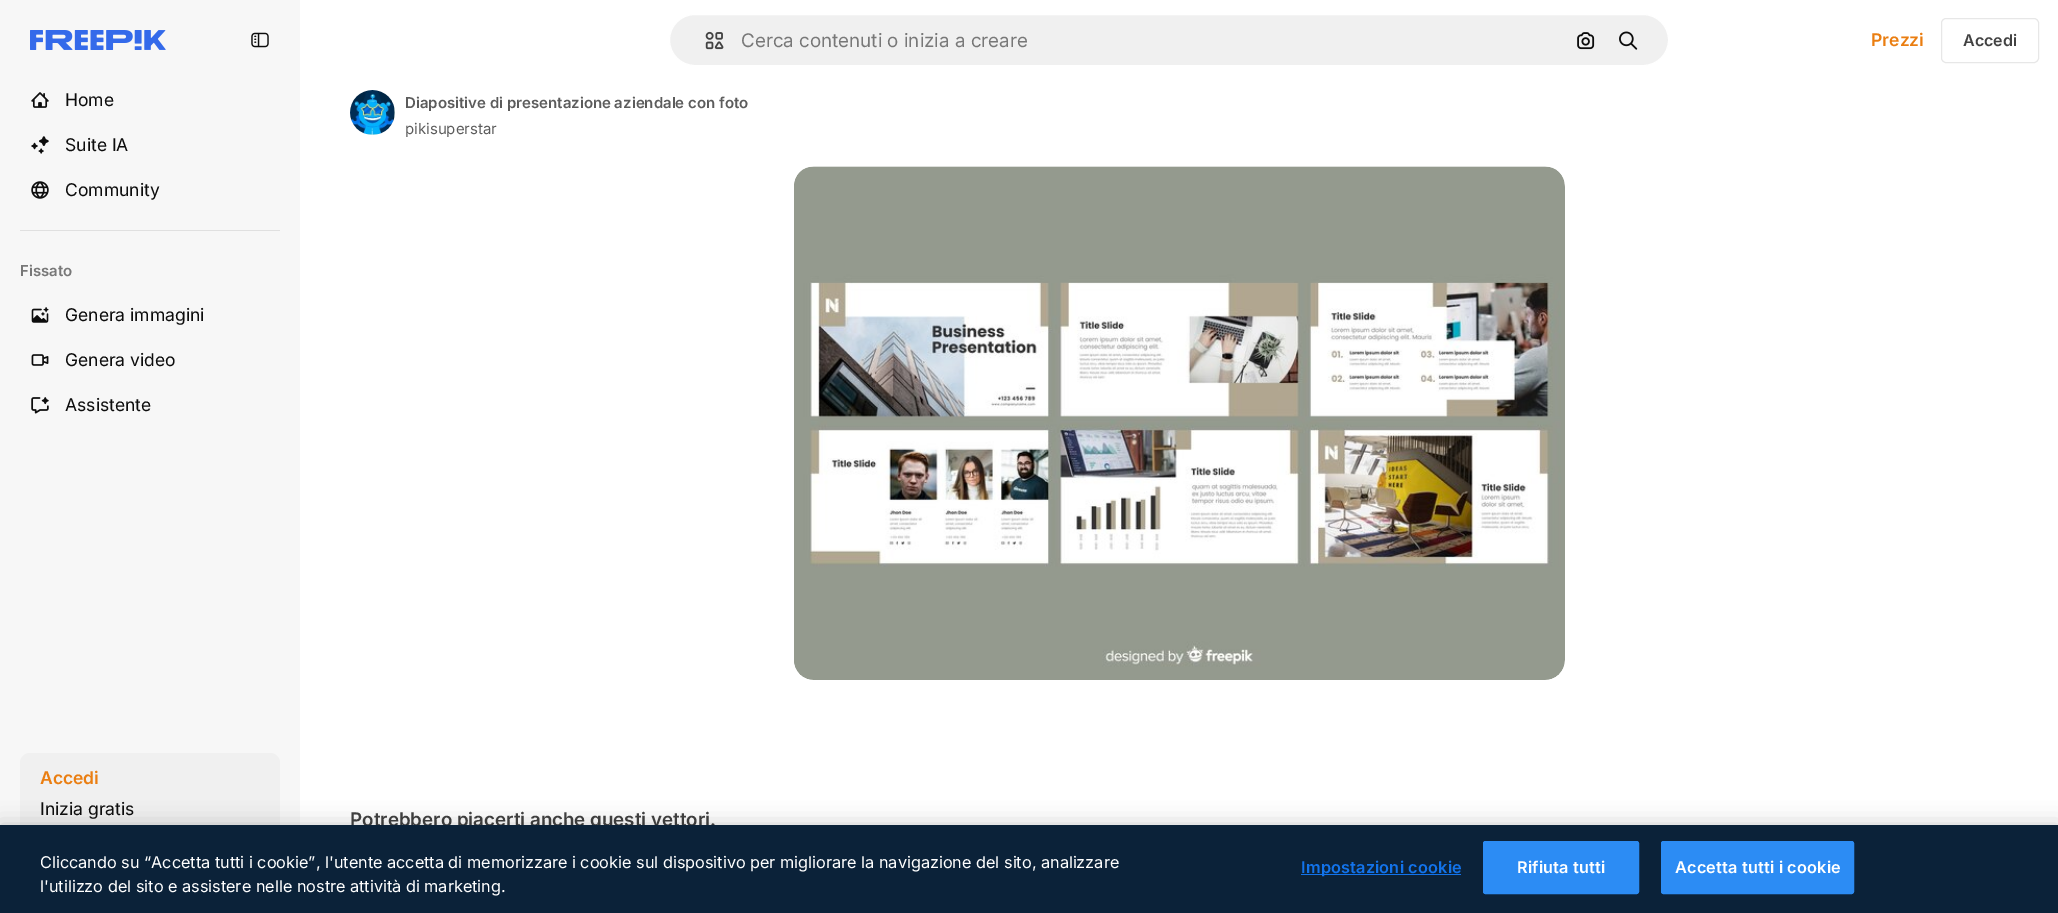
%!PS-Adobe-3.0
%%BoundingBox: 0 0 2058 913
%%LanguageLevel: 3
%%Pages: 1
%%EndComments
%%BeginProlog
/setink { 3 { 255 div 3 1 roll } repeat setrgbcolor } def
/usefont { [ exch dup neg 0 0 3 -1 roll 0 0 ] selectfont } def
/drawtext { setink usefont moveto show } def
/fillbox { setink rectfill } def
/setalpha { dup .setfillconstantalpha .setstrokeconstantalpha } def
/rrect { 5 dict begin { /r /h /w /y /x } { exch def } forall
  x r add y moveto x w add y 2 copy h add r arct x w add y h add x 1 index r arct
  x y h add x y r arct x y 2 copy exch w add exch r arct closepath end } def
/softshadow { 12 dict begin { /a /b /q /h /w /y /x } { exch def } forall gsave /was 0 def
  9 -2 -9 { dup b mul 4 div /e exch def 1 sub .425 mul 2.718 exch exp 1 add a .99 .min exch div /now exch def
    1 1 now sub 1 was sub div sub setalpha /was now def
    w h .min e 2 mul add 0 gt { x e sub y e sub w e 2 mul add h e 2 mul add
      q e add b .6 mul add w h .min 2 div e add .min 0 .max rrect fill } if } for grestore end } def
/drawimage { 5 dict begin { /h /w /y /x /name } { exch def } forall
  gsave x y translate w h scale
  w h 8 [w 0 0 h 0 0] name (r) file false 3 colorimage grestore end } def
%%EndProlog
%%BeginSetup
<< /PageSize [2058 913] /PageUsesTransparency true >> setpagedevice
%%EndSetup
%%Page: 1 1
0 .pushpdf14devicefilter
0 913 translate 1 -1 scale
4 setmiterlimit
0 0 2058 913 255 255 255 fillbox
0 0 300 825 247 247 247 fillbox
(assets/img1.rgb) 30 30 136 20 drawimage
(assets/img2.rgb) 251 32 18 16 drawimage
(assets/img3.rgb) 31 92 18 16 drawimage
(Home) 65 106 /Inter-Regular 17.5 13 13 13 drawtext
(assets/img4.rgb) 31 136 18 18 drawimage
(Suite IA) 65 151 /Inter-Regular 17.5 13 13 13 drawtext
(assets/img5.rgb) 31 181 18 18 drawimage
(Community) 65 196 /Inter-Regular 17.5 13 13 13 drawtext
20 230 260 1 224 224 224 fillbox
(Fissato) 20 276 /Inter-SemiBold 15 120 120 120 drawtext
(assets/img6.rgb) 31 307 18 16 drawimage
(Genera immagini) 65 321 /Inter-Regular 17.5 13 13 13 drawtext
(assets/img7.rgb) 31 354 18 12 drawimage
(Genera video) 65 366 /Inter-Regular 17.5 13 13 13 drawtext
(assets/img8.rgb) 31 397 18 17 drawimage
(Assistente) 65 411 /Inter-Regular 17.5 13 13 13 drawtext
240 240 240 setink
20 753 260 81 10 rrect fill
(Accedi) 40 784 /Inter-SemiBold 17.5 234 126 17 drawtext
(Inizia gratis) 40 815 /Inter-Regular 17.5 13 13 13 drawtext
240 240 240 setink
669.5 14.5 999 51 25.5 rrect gsave fill grestore
255 255 255 setink
stroke
(assets/img9.rgb) 705 31 19 19 drawimage
(Cerca contenuti o inizia a creare) 741 47 /Inter-Regular 18.75 120 120 120 drawtext
(assets/img10.rgb) 1577 32 18 18 drawimage
(assets/img11.rgb) 1619 31 19 19 drawimage
(Prezzi) 1871 46 /Inter-SemiBold 17.5 234 126 17 drawtext
231 231 231 setink
1941.5 18.5 97 44 4.5 rrect stroke
(Accedi) 1963 46 /Inter-SemiBold 16 66 66 66 drawtext
(assets/img12.rgb) 350 90 45 45 drawimage
(Diapositive di presentazione aziendale con foto) 405 108 /Inter-SemiBold 15 92 92 92 drawtext
(pikisuperstar) 405 134 /Inter-Regular 15 92 92 92 drawtext
(assets/img13.rgb) 794 166 771 514 drawimage
(Potrebbero piacerti anche questi vettori.) 350 826 /Inter-SemiBold 18.75 66 66 66 drawtext
0 0 0 setink
0 825 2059 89 0 11 0.2 softshadow
0 825 2058 88 11 34 57 fillbox
(Cliccando su “Accetta tutti i cookie”, l'utente accetta di memorizzare i cookie sul dispositivo per migliorare la navigazione del sito, analizzare) 40 868 /Inter-Regular 16.25 255 255 255 drawtext
(l'utilizzo del sito e assistere nelle nostre attività di marketing.) 40 892 /Inter-Regular 16.25 255 255 255 drawtext
1301 874 160 1 18 115 235 fillbox
/Inter-SemiBold 16.25 usefont
1301 873 moveto 0.2 0 (Impostazioni cookie) ashow
44 140 244 setink
1483.5 841.5 155 52 2 rrect gsave fill grestore
stroke
255 255 255 setink
1517 873 moveto 0.2 0 (Rifiuta tutti) ashow
44 140 244 setink
1661.5 841.5 192 52 2 rrect gsave fill grestore
stroke
255 255 255 setink
1675 873 moveto 0.2 0 (Accetta tutti i cookie) ashow
.poppdf14devicefilter showpage
%%EOF
